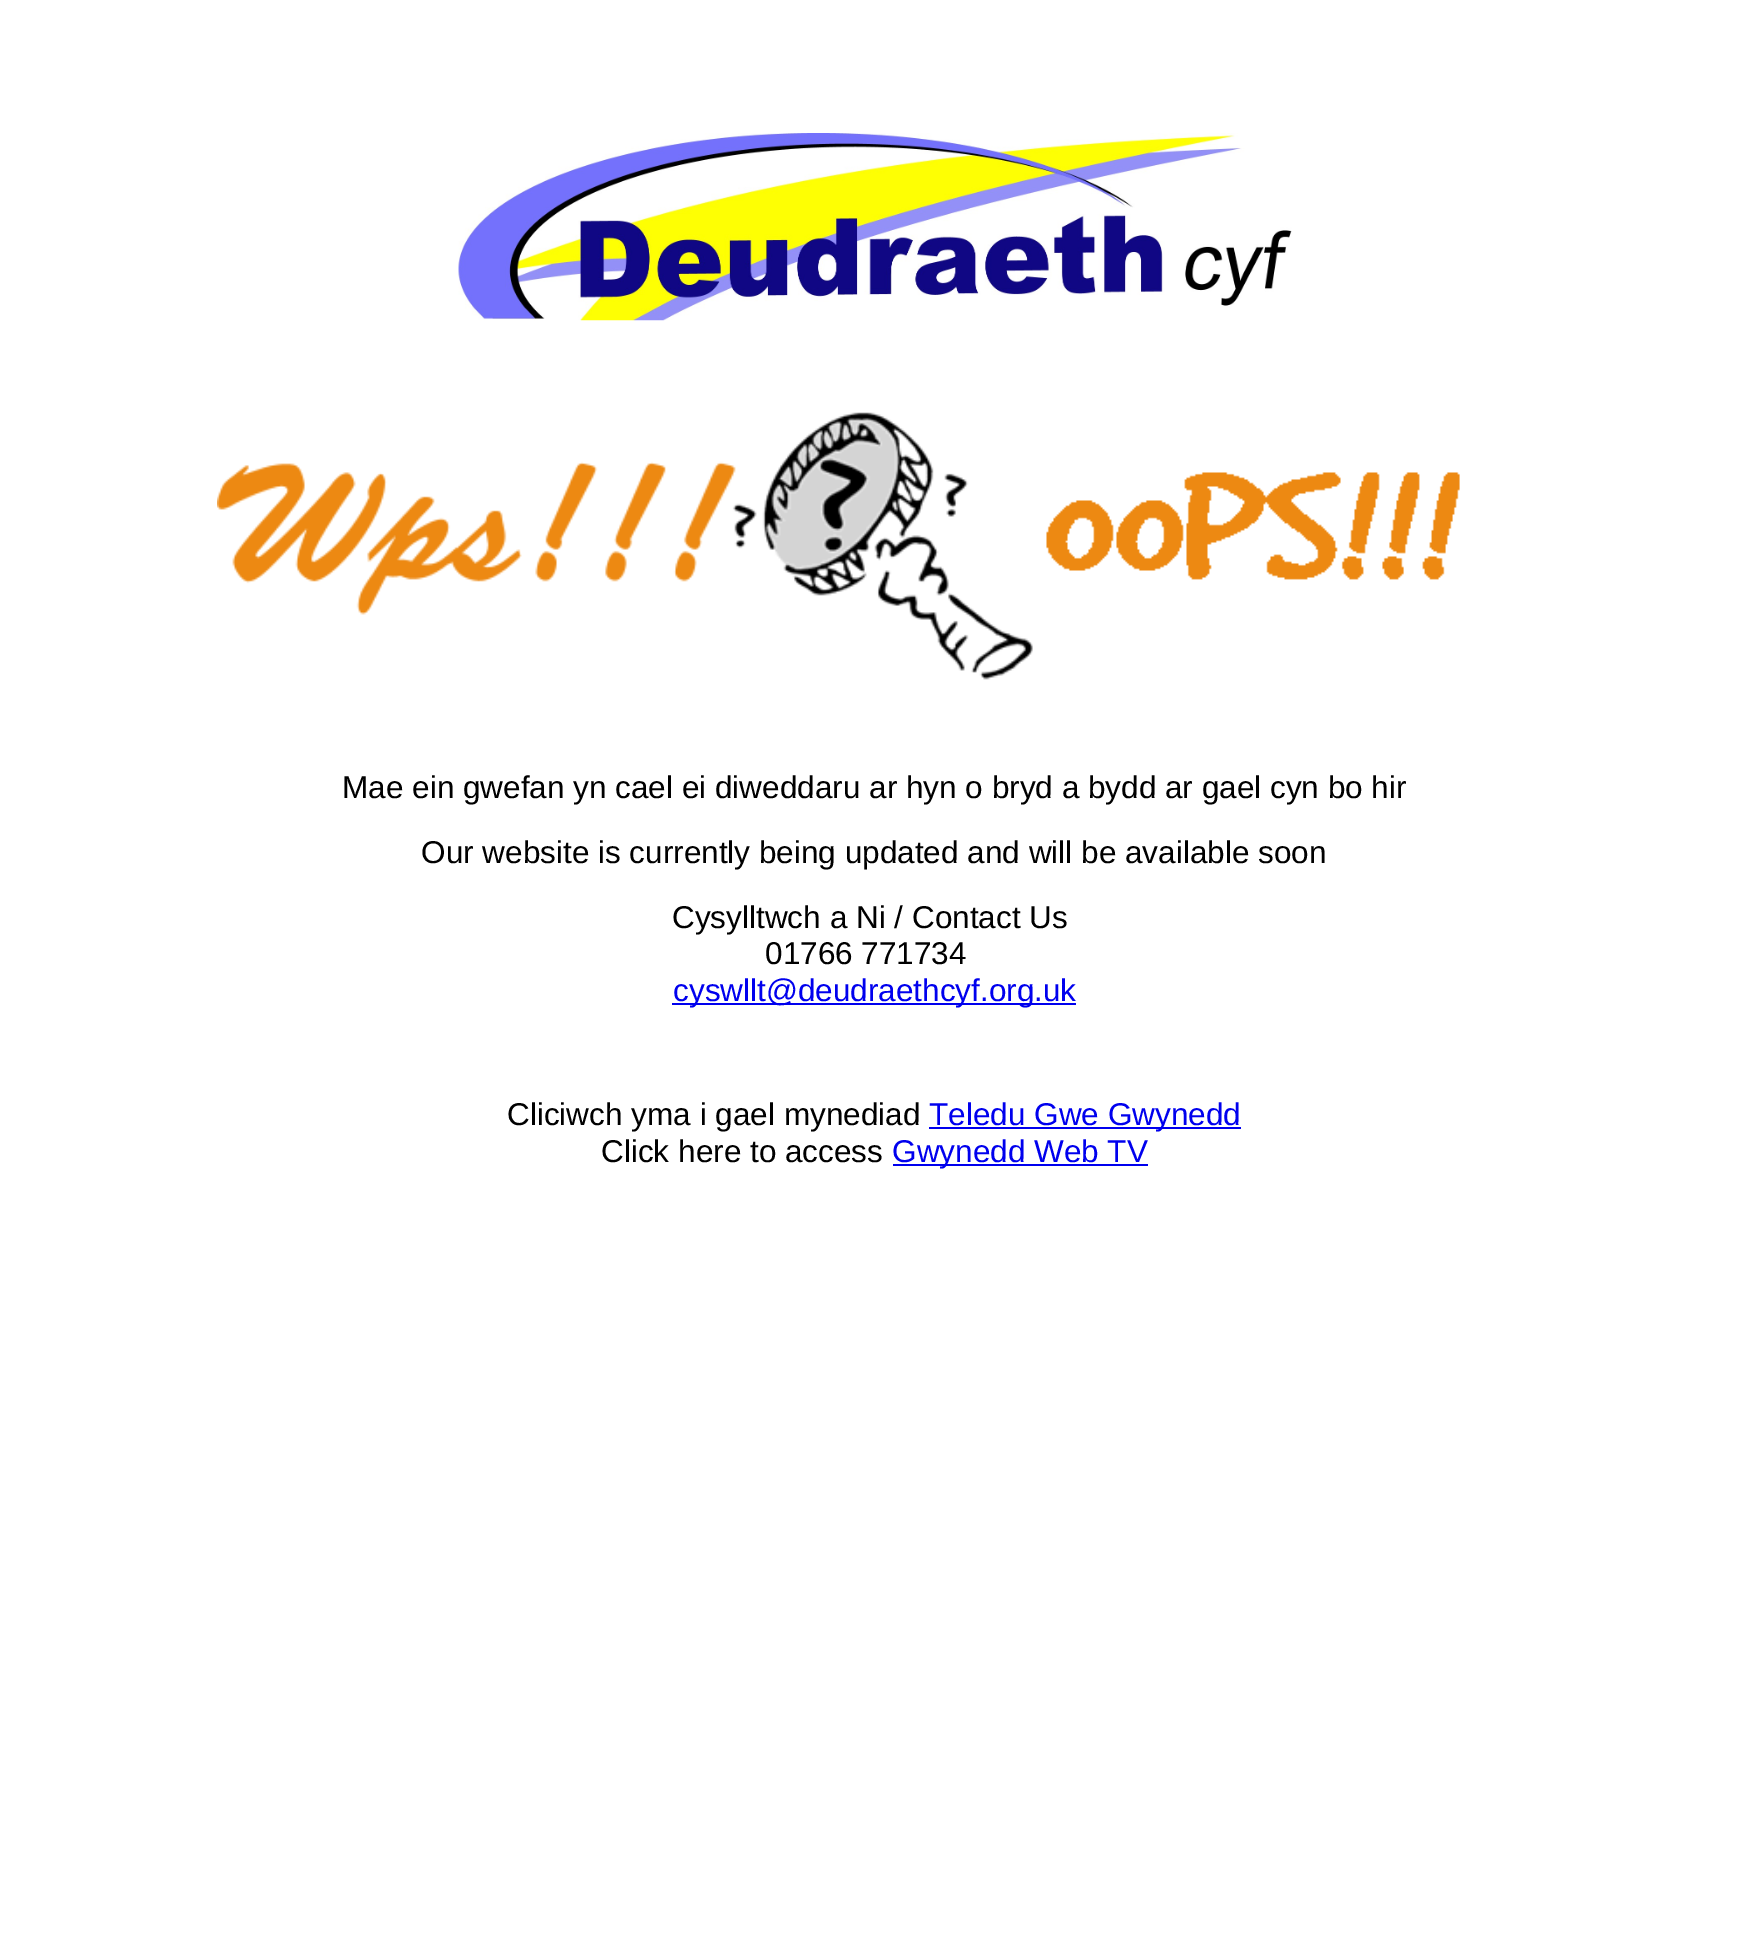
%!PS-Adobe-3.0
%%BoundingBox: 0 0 1747 1952
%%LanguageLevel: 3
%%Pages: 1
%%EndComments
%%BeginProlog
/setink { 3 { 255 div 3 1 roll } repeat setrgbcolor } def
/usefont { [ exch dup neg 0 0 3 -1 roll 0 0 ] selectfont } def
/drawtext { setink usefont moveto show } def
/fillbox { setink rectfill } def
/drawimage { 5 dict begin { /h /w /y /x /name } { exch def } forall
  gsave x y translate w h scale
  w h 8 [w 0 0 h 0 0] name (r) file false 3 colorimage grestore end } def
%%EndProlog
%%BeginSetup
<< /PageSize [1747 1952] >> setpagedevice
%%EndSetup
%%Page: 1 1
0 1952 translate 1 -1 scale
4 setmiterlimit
0 0 1747 1952 255 255 255 fillbox
(assets/img1.rgb) 458 133 834 188 drawimage
(assets/img2.rgb) 217 412 1243 268 drawimage
(Mae ein gwefan yn cael ei diweddaru ar hyn o bryd a bydd ar gael cyn bo hir) 342 798 /LiberationSans-Regular 31.5 0 0 0 drawtext
(Our website is currently being updated and will be available soon) 421 863 /LiberationSans-Regular 31.5 0 0 0 drawtext
(Cysylltwch a Ni / Contact Us) 672 928 /LiberationSans-Regular 31.5 0 0 0 drawtext
(01766 771734) 765 964 /LiberationSans-Regular 31.5 0 0 0 drawtext
672 1003 404 2 0 0 238 fillbox
(cyswllt@deudraethcyf.org.uk) 673 1001 /LiberationSans-Regular 31.5 0 0 238 drawtext
(Cliciwch yma i gael mynediad) 507 1125 /LiberationSans-Regular 31.5 0 0 0 drawtext
929 1127 312 2 0 0 238 fillbox
(Teledu Gwe Gwynedd) 929 1125 /LiberationSans-Regular 31.5 0 0 238 drawtext
(Click here to access) 601 1162 /LiberationSans-Regular 31.5 0 0 0 drawtext
893 1164 255 2 0 0 238 fillbox
(Gwynedd Web TV) 892 1162 /LiberationSans-Regular 31.5 0 0 238 drawtext
showpage
%%EOF
